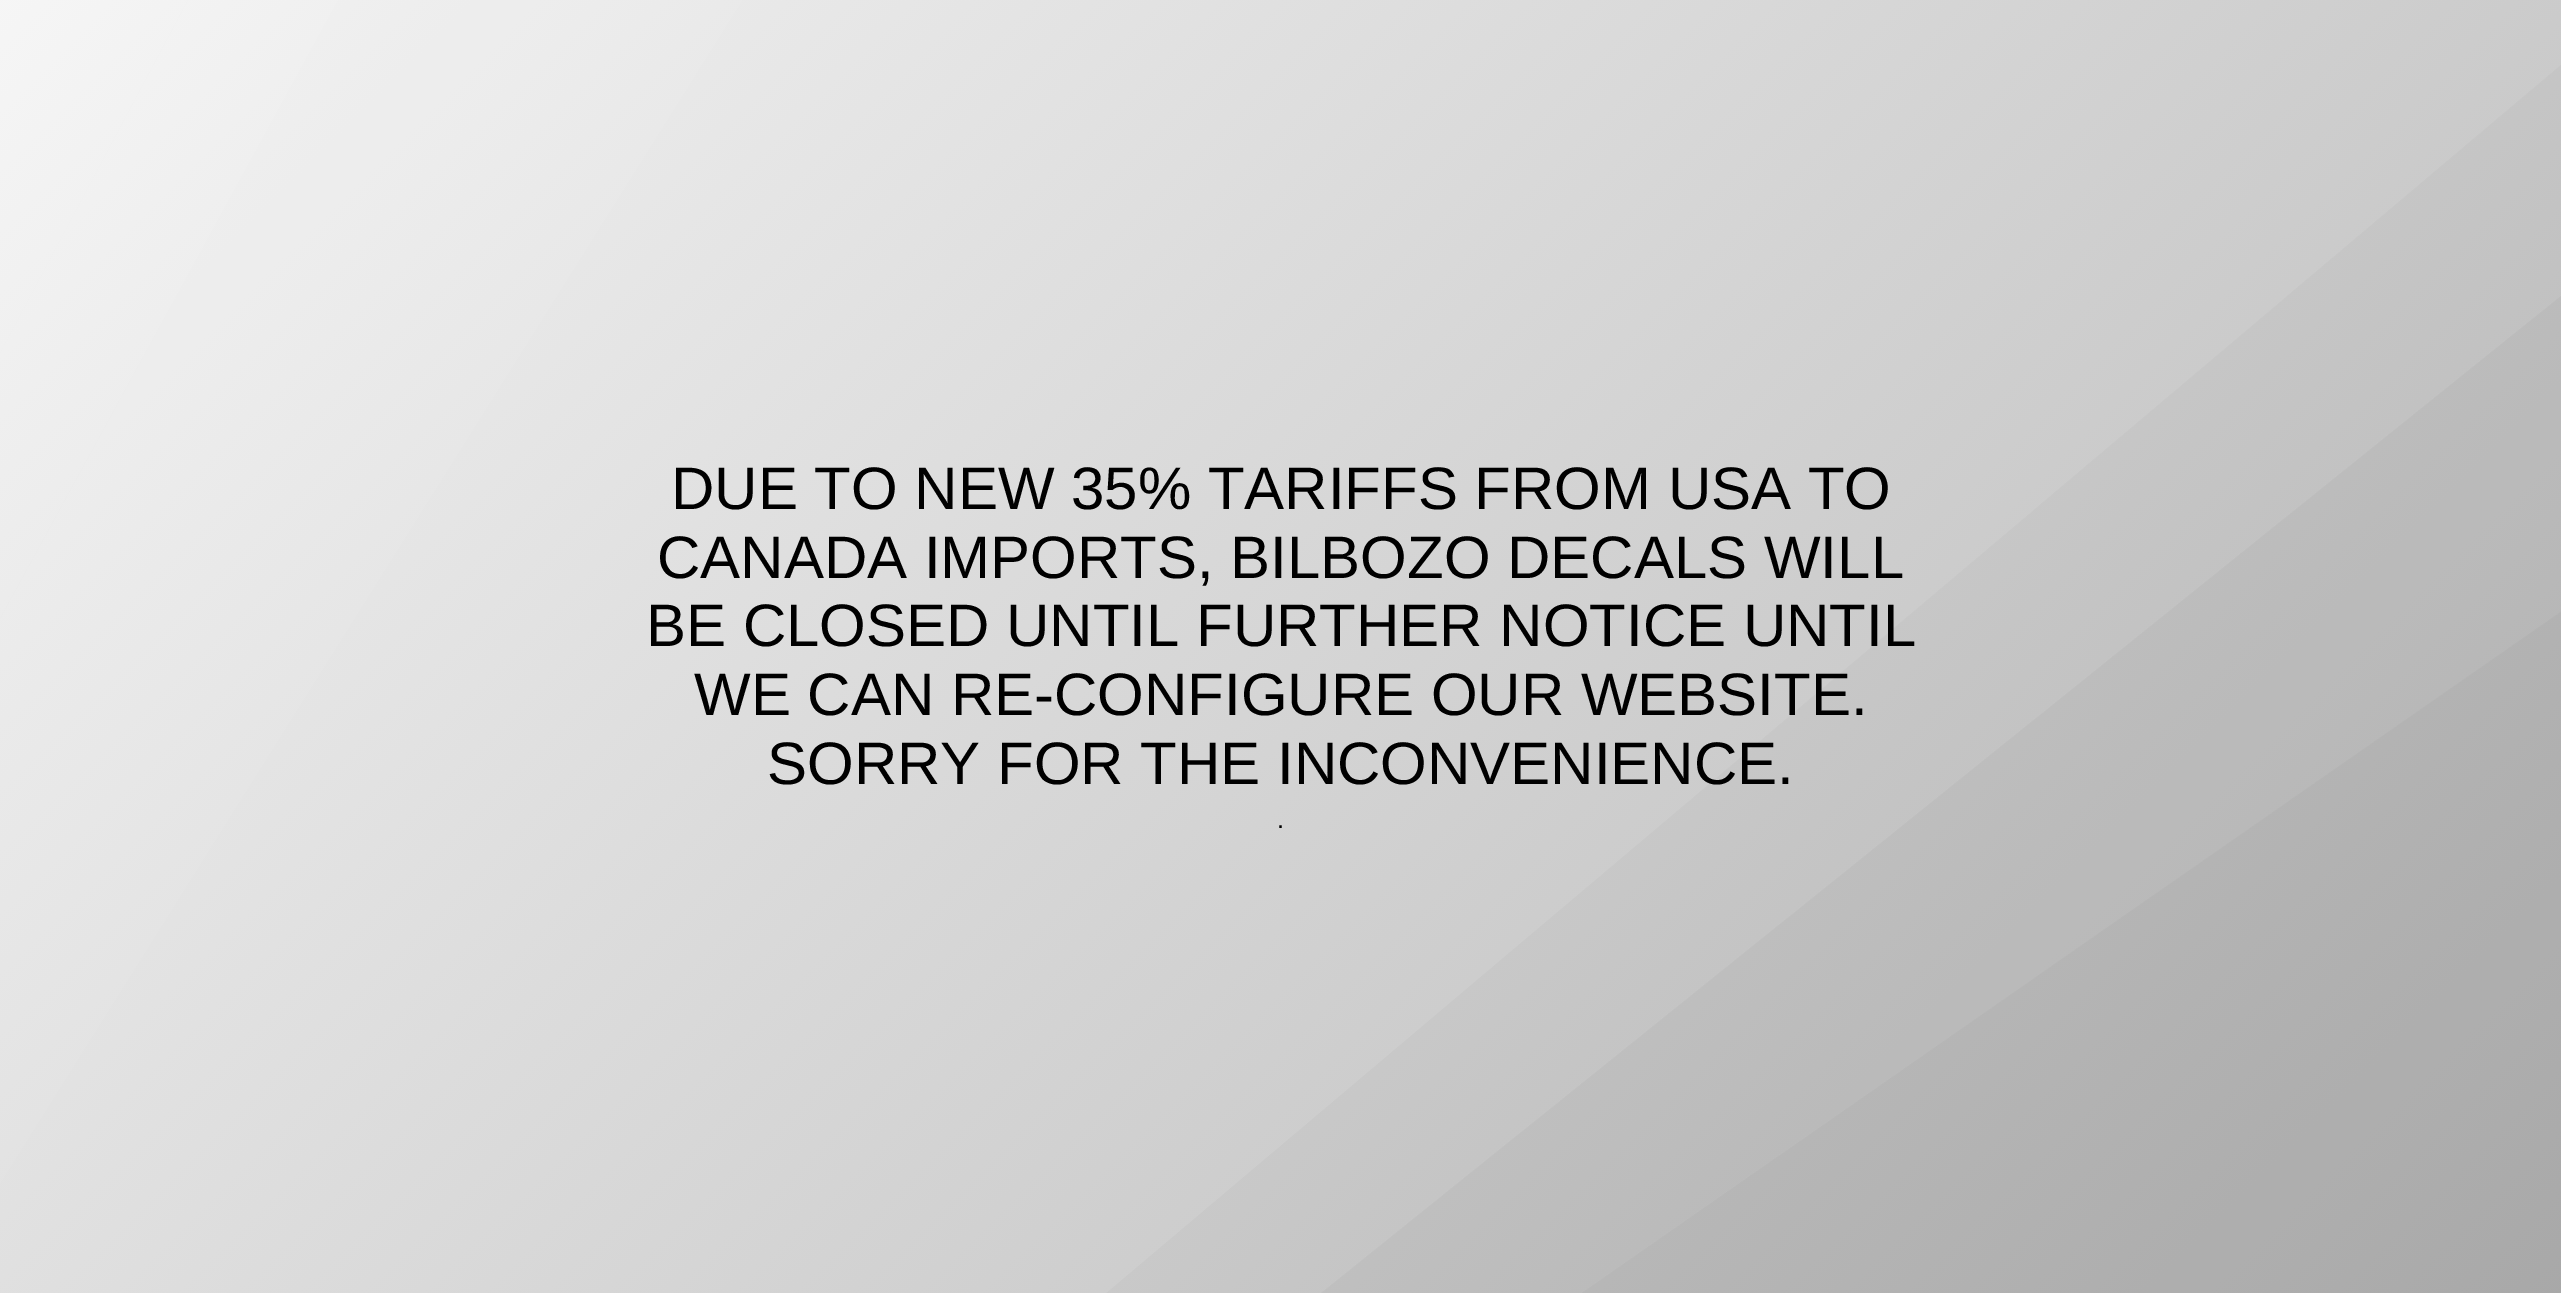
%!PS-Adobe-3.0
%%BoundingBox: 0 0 2561 1293
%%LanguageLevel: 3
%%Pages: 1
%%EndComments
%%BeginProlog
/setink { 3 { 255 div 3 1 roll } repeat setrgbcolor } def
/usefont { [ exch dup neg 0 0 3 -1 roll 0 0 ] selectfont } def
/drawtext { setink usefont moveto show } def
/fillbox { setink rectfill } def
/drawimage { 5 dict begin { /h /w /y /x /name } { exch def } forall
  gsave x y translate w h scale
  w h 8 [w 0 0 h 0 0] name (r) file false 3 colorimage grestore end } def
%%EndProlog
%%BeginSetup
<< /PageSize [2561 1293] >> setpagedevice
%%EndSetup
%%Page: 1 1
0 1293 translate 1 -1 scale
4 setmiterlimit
0 0 2561 1293 255 255 255 fillbox
(assets/img1.rgb) 0 0 2561 1293 drawimage
(DUE TO NEW 35% TARIFFS FROM USA TO) 671 509 /LiberationSans-Regular 60 0 0 0 drawtext
(CANADA IMPORTS, BILBOZO DECALS WILL) 657 578 /LiberationSans-Regular 60 0 0 0 drawtext
(BE CLOSED UNTIL FURTHER NOTICE UNTIL) 646 646 /LiberationSans-Regular 60 0 0 0 drawtext
(WE CAN RE-CONFIGURE OUR WEBSITE.) 694 715 /LiberationSans-Regular 60 0 0 0 drawtext
(SORRY FOR THE INCONVENIENCE.) 767 784 /LiberationSans-Regular 60 0 0 0 drawtext
(.) 1277 828 /LiberationSans-Regular 25 0 0 0 drawtext
showpage
%%EOF
